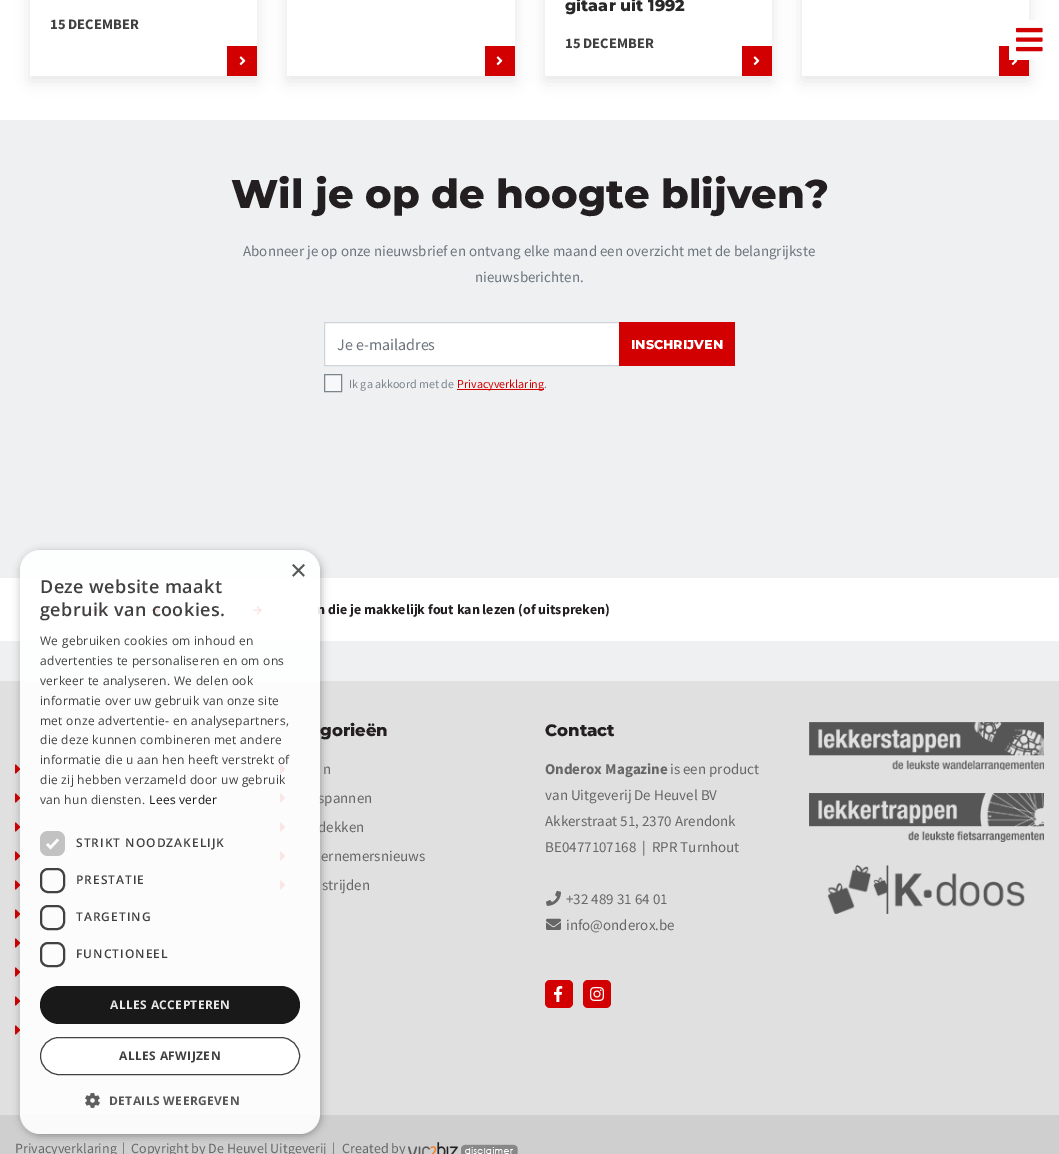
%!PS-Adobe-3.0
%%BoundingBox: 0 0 1059 1154
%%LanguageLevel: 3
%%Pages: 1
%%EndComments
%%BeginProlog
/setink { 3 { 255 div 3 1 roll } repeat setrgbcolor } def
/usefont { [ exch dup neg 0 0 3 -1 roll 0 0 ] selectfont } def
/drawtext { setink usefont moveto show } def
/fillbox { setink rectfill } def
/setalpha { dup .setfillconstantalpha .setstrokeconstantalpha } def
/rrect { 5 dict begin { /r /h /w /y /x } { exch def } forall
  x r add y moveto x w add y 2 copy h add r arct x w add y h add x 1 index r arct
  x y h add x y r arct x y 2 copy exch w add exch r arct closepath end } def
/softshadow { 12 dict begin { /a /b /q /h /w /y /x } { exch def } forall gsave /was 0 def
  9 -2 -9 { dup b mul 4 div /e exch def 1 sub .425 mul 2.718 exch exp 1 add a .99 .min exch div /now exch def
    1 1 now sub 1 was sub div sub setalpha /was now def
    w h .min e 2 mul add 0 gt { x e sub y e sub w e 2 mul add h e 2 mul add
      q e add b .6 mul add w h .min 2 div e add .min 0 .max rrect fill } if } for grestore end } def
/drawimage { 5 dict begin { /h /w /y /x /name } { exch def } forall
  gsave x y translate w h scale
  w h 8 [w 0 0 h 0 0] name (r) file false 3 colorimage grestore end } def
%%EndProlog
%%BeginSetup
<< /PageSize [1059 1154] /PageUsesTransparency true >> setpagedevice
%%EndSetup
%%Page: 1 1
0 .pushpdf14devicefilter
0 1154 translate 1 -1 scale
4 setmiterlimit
0 0 1059 1154 238 240 242 fillbox
0 0 1059 120 255 255 255 fillbox
gsave
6 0 moveto 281 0 lineto 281 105 lineto 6 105 lineto closepath 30 -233 moveto 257 -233 lineto 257 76 lineto 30 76 lineto closepath eoclip newpath
0 0 0 setink
30 -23 227 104 0 7.5 0.1 softshadow
grestore
(15 DECEMBER) 50 29 /SourceSansPro-Bold 14.5 64 64 64 drawtext
227 46 30 30 210 0 1 fillbox
(assets/img1.rgb) 239 56 7 10 drawimage
gsave
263 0 moveto 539 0 lineto 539 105 lineto 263 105 lineto closepath 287 -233 moveto 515 -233 lineto 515 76 lineto 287 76 lineto closepath eoclip newpath
0 0 0 setink
287 -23 228 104 0 7.5 0.1 softshadow
grestore
485 46 30 30 210 0 1 fillbox
(assets/img1.rgb) 496 56 7 10 drawimage
gsave
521 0 moveto 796 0 lineto 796 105 lineto 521 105 lineto closepath 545 -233 moveto 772 -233 lineto 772 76 lineto 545 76 lineto closepath eoclip newpath
0 0 0 setink
545 -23 227 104 0 7.5 0.1 softshadow
grestore
(gitaar uit 1992) 565 11 /Montserrat-ExtraBold 16 40 40 40 drawtext
(15 DECEMBER) 565 48 /SourceSansPro-Bold 14.5 64 64 64 drawtext
742 46 30 30 210 0 1 fillbox
(assets/img1.rgb) 753 56 7 10 drawimage
gsave
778 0 moveto 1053 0 lineto 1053 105 lineto 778 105 lineto closepath 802 -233 moveto 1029 -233 lineto 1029 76 lineto 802 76 lineto closepath eoclip newpath
0 0 0 setink
802 -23 227 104 0 7.5 0.1 softshadow
grestore
999 46 30 30 210 0 1 fillbox
(assets/img2.rgb) 1011 60 7 6 drawimage
1009 20 30 40 255 255 255 fillbox
(assets/img3.rgb) 1016 27 27 25 drawimage
(Wil je op de hoogte blijven?) 231 208 /Montserrat-ExtraBold 40 35 31 32 drawtext
(Abonneer je op onze nieuwsbrief en ontvang elke maand een overzicht met de belangrijkste) 243 256 /SourceSansPro-Regular 15 108 117 125 drawtext
(nieuwsberichten.) 475 282 /SourceSansPro-Regular 15 108 117 125 drawtext
255 255 255 setink
324.5 322.5 moveto 619.5 322.5 lineto 619.5 365.5 lineto 324.5 365.5 lineto closepath gsave fill grestore
206 212 218 setink
stroke
(Je e-mailadres) 337 350 /SourceSansPro-Regular 16 108 117 125 drawtext
619 322 116 44 210 0 1 fillbox
(INSCHRIJVEN) 631 349 /Montserrat-ExtraBold 12.75 255 255 255 drawtext
247 248 249 setink
324.5 374.5 moveto 341.5 374.5 lineto 341.5 391.5 lineto 324.5 391.5 lineto closepath gsave fill grestore
125 133 140 setink
stroke
(Ik ga akkoord met de) 349 388 /SourceSansPro-Regular 12 125 133 140 drawtext
457 389 87 1 210 0 1 fillbox
(Privacyverklaring) 457 388 /SourceSansPro-Regular 12 210 0 1 drawtext
(.) 544 388 /SourceSansPro-Regular 12 125 133 140 drawtext
0 578 1059 63 255 255 255 fillbox
(assets/img5.rgb) 90 606 9 9 drawimage
(assets/img5.rgb) 151 606 9 9 drawimage
(assets/img5.rgb) 253 606 9 9 drawimage
0 681 1059 434 224 224 224 fillbox
(assets/img6.rgb) 15 764 6 10 drawimage
(assets/img6.rgb) 15 793 6 10 drawimage
(assets/img6.rgb) 15 822 6 10 drawimage
(assets/img6.rgb) 15 851 6 10 drawimage
(assets/img6.rgb) 15 880 6 10 drawimage
(assets/img6.rgb) 15 909 6 10 drawimage
(assets/img6.rgb) 15 938 6 10 drawimage
(assets/img6.rgb) 15 967 6 10 drawimage
(assets/img6.rgb) 15 996 6 10 drawimage
(assets/img6.rgb) 15 1025 6 10 drawimage
(assets/img6.rgb) 280 764 6 10 drawimage
(assets/img6.rgb) 280 793 6 10 drawimage
(assets/img6.rgb) 280 822 6 10 drawimage
(assets/img6.rgb) 280 851 6 10 drawimage
(assets/img6.rgb) 280 880 6 10 drawimage
0 1115 1059 39 207 207 207 fillbox
gsave
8 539 moveto 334 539 lineto 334 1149 lineto 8 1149 lineto closepath 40 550 moveto 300 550 lineto 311 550 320 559 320 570 curveto 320 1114 lineto 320 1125 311 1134 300 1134 curveto 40 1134 lineto 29 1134 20 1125 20 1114 curveto 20 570 lineto 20 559 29 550 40 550 curveto closepath eoclip newpath
0 0 0 setink
21 552 300 584 20 4 0.32 softshadow
grestore
(n die je makkelijk fout kan lezen \(of uitspreken\)) 317 614 /SourceSansPro-Bold 14 35 31 32 drawtext
(spannen) 318 803 /SourceSansPro-Regular 15 102 102 102 drawtext
(dekken) 318 832 /SourceSansPro-Regular 15 102 102 102 drawtext
0.9 setalpha
255 255 255 setink
20 550 300 584 20 rrect fill
1 setalpha
(×) 290 580 /LiberationSans-Regular 29 87 87 87 drawtext
/OpenSans-SemiBold 18 usefont
64 64 64 setink
40 593 moveto 0.4 0 (Deze website maakt) ashow
40 616 moveto 0.4 0 (gebruik van cookies.) ashow
/OpenSans-Regular 12 usefont
40 645 moveto 0.3 0 (We gebruiken cookies om inhoud en) ashow
40 665 moveto 0.3 0 (advertenties te personaliseren en om ons) ashow
40 685 moveto 0.3 0 (verkeer te analyseren. We delen ook) ashow
40 705 moveto 0.3 0 (informatie over uw gebruik van onze site) ashow
40 725 moveto 0.3 0 (met onze advertentie- en analysepartners,) ashow
40 744 moveto 0.3 0 (die deze kunnen combineren met andere) ashow
40 764 moveto 0.3 0 (informatie die u aan hen heeft verstrekt of) ashow
40 784 moveto 0.3 0 (die zij hebben verzameld door uw gebruik) ashow
40 804 moveto 0.3 0 (van hun diensten.) ashow
22 22 22 setink
149 804 moveto 0.3 0 (Lees verder) ashow
0.23 setalpha
0 0 0 setink
40 831 25 25 8 rrect fill
1 setalpha
252 252 252 setink
2.6 setlinewidth
47 844 moveto 50.5 847.5 lineto 58 839.5 lineto stroke
/OpenSans-SemiBold 12 usefont
64 64 64 setink
76 847 moveto 1 0 (STRIKT NOODZAKELIJK) ashow
0.9 setalpha
45 45 45 setink
2 setlinewidth
41 869 23 23 7 rrect stroke
1 setalpha
64 64 64 setink
76 884 moveto 1 0 (PRESTATIE) ashow
0.9 setalpha
45 45 45 setink
41 906 23 23 7 rrect stroke
1 setalpha
64 64 64 setink
76 921 moveto 1 0 (TARGETING) ashow
0.9 setalpha
45 45 45 setink
41 943 23 23 7 rrect stroke
1 setalpha
64 64 64 setink
76 958 moveto 1 0 (FUNCTIONEEL) ashow
0.9 setalpha
0 0 0 setink
40 986 260 38 19 rrect fill
/OpenSans-Bold 12 usefont
1 setalpha
232 232 232 setink
110 1009 moveto 0.4 0 (ALLES ACCEPTEREN) ashow
0.9 setalpha
255 255 255 setink
40.5 1037.5 259 37 18.5 rrect fill
1 setalpha
66 66 66 setink
1 setlinewidth
40.5 1037.5 259 37 18.5 rrect stroke
64 64 64 setink
119 1060 moveto 0.4 0 (ALLES AFWIJZEN) ashow
(assets/img4.rgb) 85 1093 15 15 drawimage
87 87 87 setink
109 1105 moveto 0.4 0 (DETAILS WEERGEVEN) ashow
(gorieën) 320 736 /Montserrat-ExtraBold 16.5 35 31 32 drawtext
(n) 323 774 /SourceSansPro-Regular 15 102 102 102 drawtext
(ernemersnieuws) 321 861 /SourceSansPro-Regular 15 102 102 102 drawtext
(strijden) 322 890 /SourceSansPro-Regular 15 102 102 102 drawtext
(Contact) 545 736 /Montserrat-ExtraBold 16.5 35 31 32 drawtext
(Onderox Magazine) 545 774 /SourceSansPro-Bold 15 102 102 102 drawtext
(is een product) 670 774 /SourceSansPro-Regular 15 102 102 102 drawtext
(van Uitgeverij De Heuvel BV) 545 800 /SourceSansPro-Regular 15 102 102 102 drawtext
(Akkerstraat 51, 2370 Arendonk) 545 826 /SourceSansPro-Regular 15 102 102 102 drawtext
(BE0477107168  |  RPR Turnhout) 545 852 /SourceSansPro-Regular 15 102 102 102 drawtext
(assets/img7.rgb) 546 890 15 16 drawimage
(+32 489 31 64 01) 566 904 /SourceSansPro-Regular 15 102 102 102 drawtext
(assets/img8.rgb) 546 918 15 12 drawimage
(info@onderox.be) 566 930 /SourceSansPro-Regular 15 102 102 102 drawtext
210 0 1 setink
545 980 28 28 5 rrect fill
(assets/img9.rgb) 554 986 9 16 drawimage
583 980 28 28 5 rrect fill
(assets/img10.rgb) 590 987 14 14 drawimage
(assets/img11.rgb) 809 722 235 48 drawimage
(assets/img12.rgb) 809 793 235 49 drawimage
(assets/img13.rgb) 827 865 198 49 drawimage
(Privacyverklaring) 15 1153 /SourceSansPro-Regular 14 102 102 102 drawtext
(|) 122 1153 /SourceSansPro-Regular 14 102 102 102 drawtext
(Copyright by De Heuvel Uitgeverij  |) 131 1153 /SourceSansPro-Regular 14 102 102 102 drawtext
(Created by) 342 1153 /SourceSansPro-Regular 14 102 102 102 drawtext
(assets/img14.rgb) 408 1142 50 12 drawimage
(assets/img15.rgb) 461 1144 57 10 drawimage
.poppdf14devicefilter showpage
%%EOF
